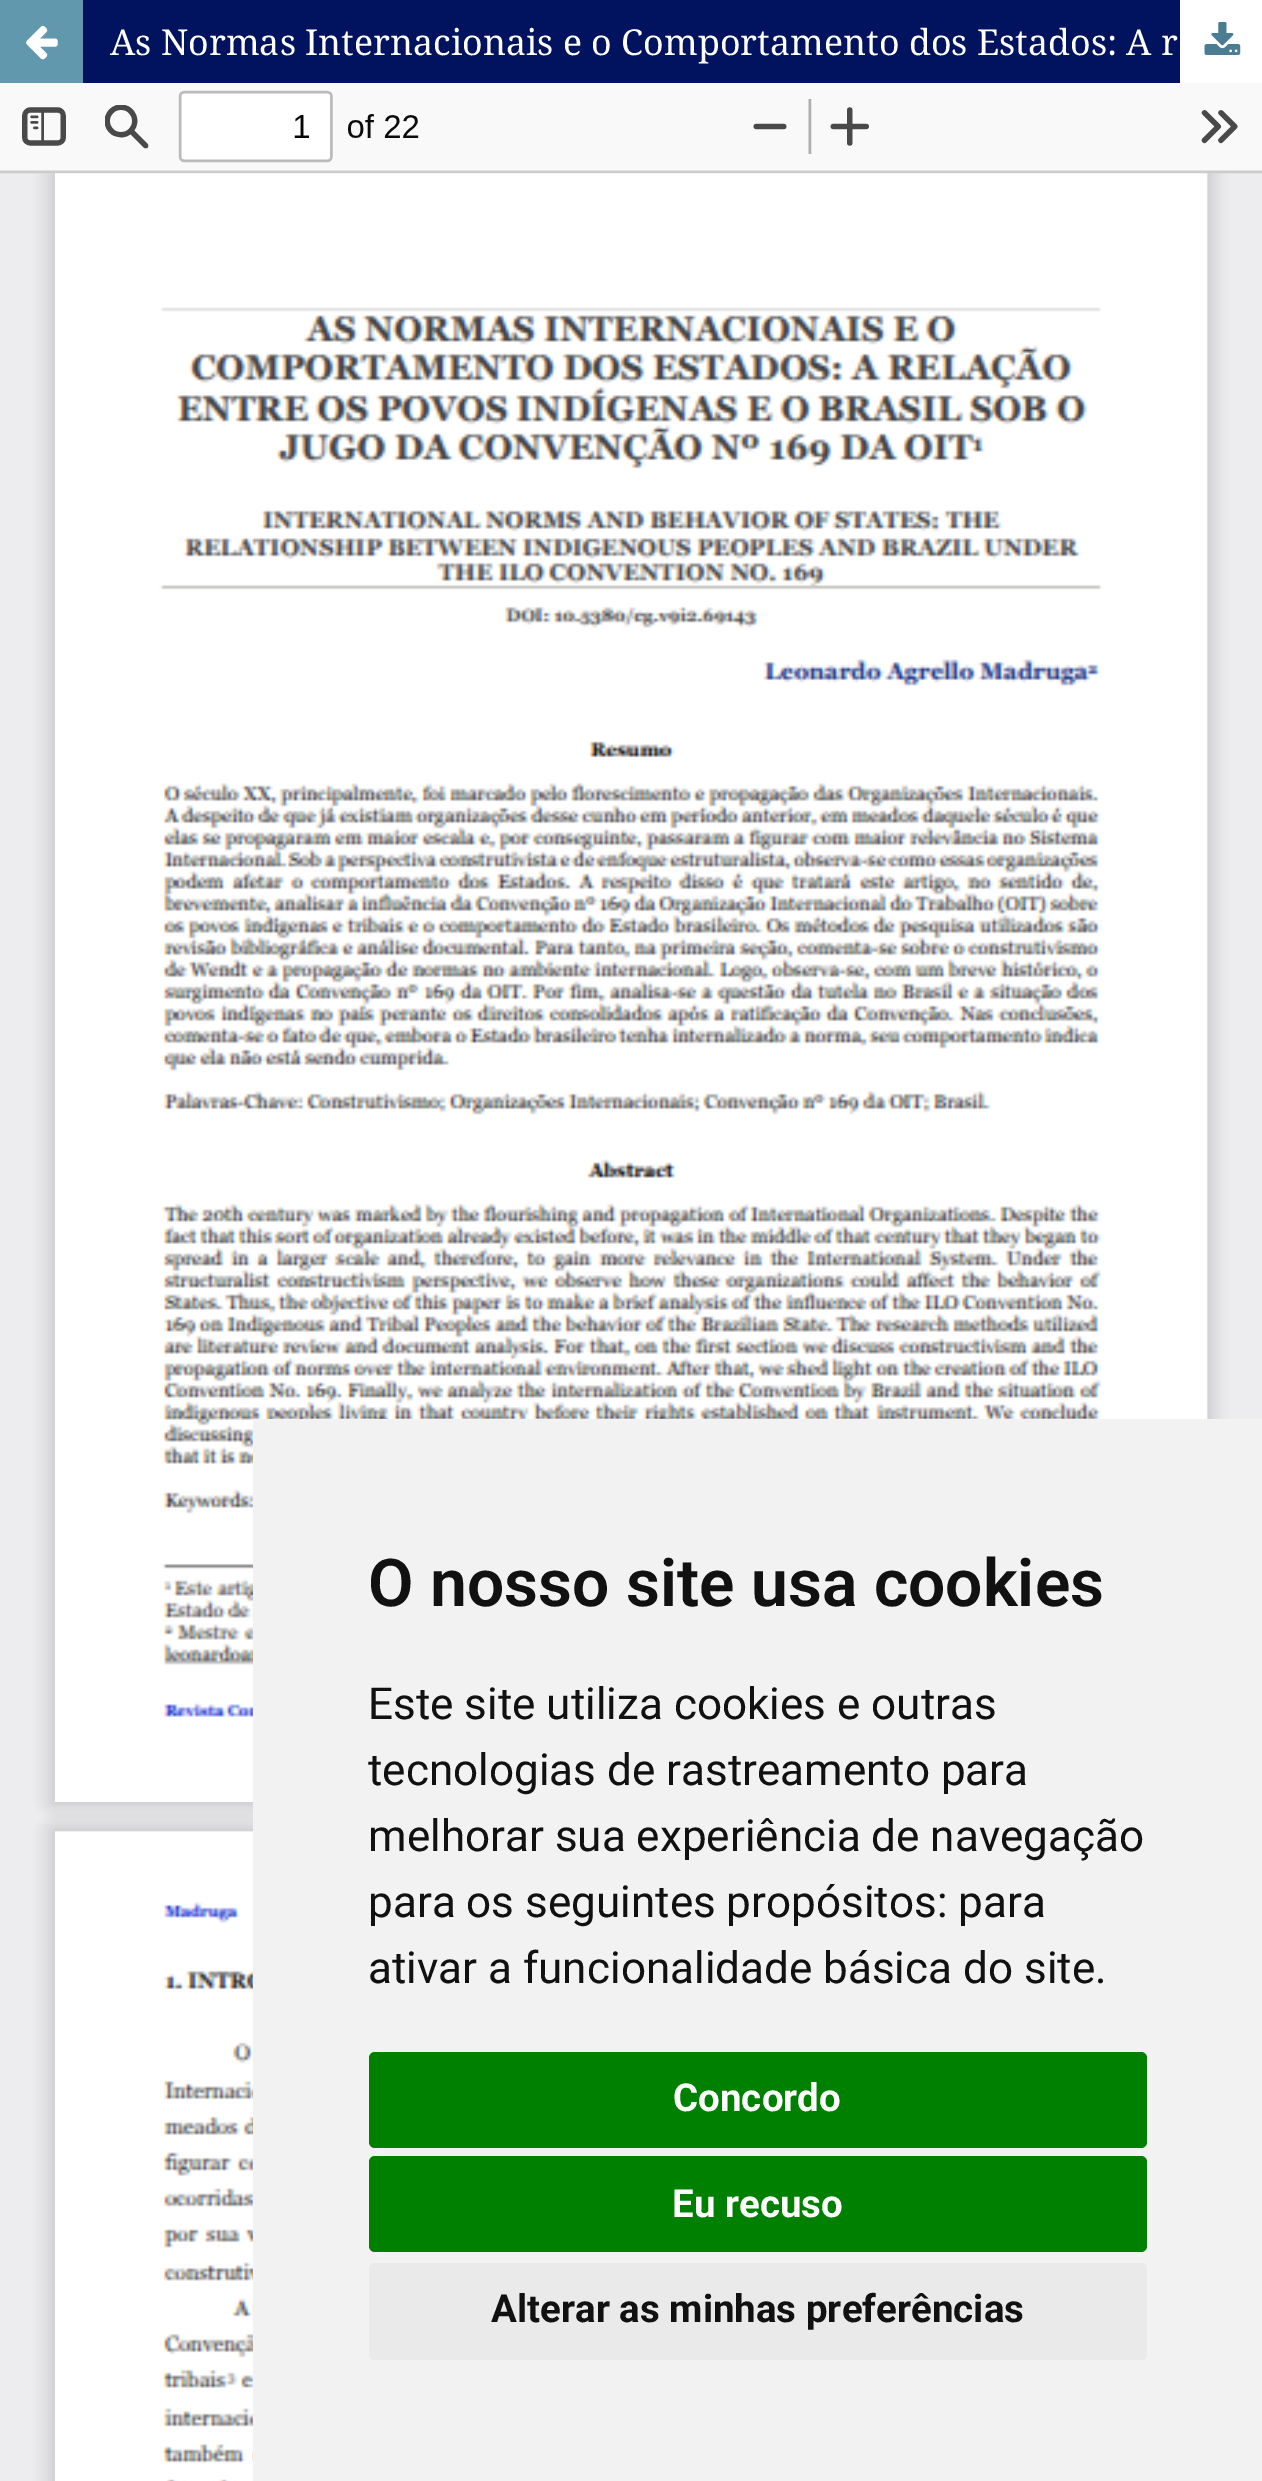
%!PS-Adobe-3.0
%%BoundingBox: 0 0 1262 2481
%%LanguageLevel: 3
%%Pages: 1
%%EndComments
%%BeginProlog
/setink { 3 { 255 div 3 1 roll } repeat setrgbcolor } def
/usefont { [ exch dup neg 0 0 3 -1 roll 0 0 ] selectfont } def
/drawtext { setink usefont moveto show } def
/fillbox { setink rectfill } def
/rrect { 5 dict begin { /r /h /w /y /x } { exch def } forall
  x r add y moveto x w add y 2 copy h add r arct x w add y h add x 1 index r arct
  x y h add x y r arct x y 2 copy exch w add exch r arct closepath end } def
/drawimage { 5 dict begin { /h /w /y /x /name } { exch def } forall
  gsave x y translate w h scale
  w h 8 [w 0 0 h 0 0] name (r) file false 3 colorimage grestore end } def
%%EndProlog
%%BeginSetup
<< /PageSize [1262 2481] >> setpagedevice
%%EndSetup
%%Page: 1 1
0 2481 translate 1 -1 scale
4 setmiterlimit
0 0 1262 2481 255 255 255 fillbox
83 0 1097 83 1 19 95 fillbox
0 0 83 83 98 152 174 fillbox
(assets/img1.rgb) 26 25 32 35 drawimage
(As Normas Internacionais e o Comportamento dos Estados: A r) 110 55 /NotoSerif-Regular 35.8 255 255 255 drawtext
(assets/img2.rgb) 1204 22 37 33 drawimage
(assets/img3.rgb) 0 83 1262 2398 drawimage
253 1419 1009 1062 242 242 242 fillbox
(O nosso site usa cookies) 368 1606 /Roboto-SemiBold 66 17 17 17 drawtext
(Este site utiliza cookies e outras) 368 1719 /Roboto-Regular 44 17 17 17 drawtext
(tecnologias de rastreamento para) 368 1785 /Roboto-Regular 44 17 17 17 drawtext
(melhorar sua experiência de navegação) 368 1851 /Roboto-Regular 44 17 17 17 drawtext
(para os seguintes propósitos: para) 368 1917 /Roboto-Regular 44 17 17 17 drawtext
(ativar a funcionalidade básica do site.) 368 1983 /Roboto-Regular 44 17 17 17 drawtext
0 128 0 setink
369 2052 778 96 6 rrect fill
(Concordo) 673 2111 /Roboto-Bold 38.5 255 255 255 drawtext
0 128 0 setink
369 2156 778 96 6 rrect fill
(Eu recuso) 672 2217 /Roboto-Bold 38.5 255 255 255 drawtext
234 234 234 setink
369 2263 778 97 6 rrect fill
(Alterar as minhas preferências) 491 2322 /Roboto-Bold 38.5 17 17 17 drawtext
showpage
%%EOF
